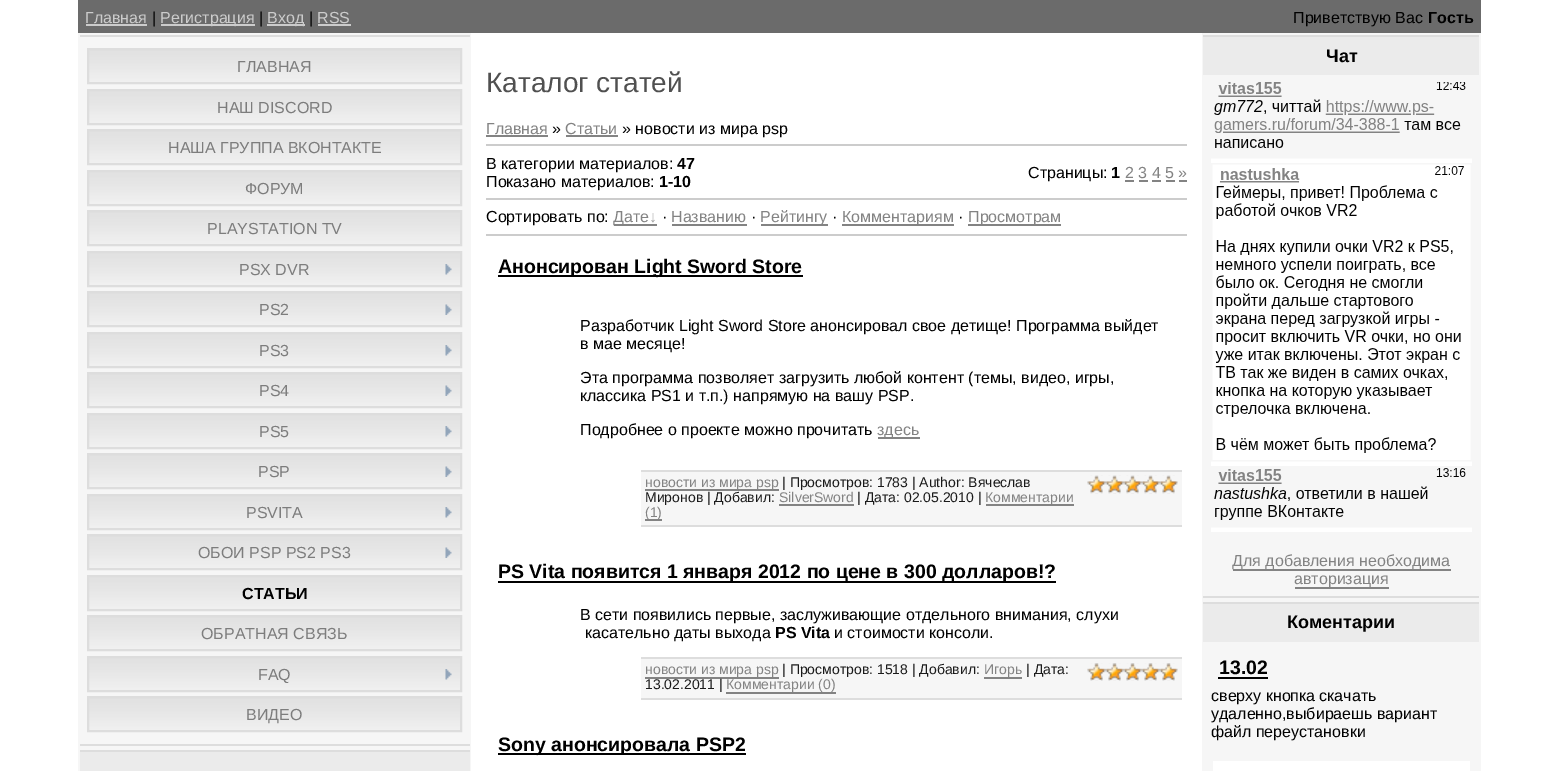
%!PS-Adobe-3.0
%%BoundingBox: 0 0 1558 771
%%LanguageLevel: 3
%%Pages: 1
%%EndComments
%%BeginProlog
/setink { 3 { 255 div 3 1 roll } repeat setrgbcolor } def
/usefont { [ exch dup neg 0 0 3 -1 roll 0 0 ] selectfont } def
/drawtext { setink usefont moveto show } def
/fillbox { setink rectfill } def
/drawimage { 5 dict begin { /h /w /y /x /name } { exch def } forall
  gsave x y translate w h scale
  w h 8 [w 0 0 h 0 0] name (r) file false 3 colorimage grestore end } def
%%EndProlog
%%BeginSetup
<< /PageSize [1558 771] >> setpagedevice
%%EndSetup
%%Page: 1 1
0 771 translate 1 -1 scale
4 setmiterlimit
0 0 1558 771 255 255 255 fillbox
78 0 1403 33 107 107 107 fillbox
(Главная) 85 23 /LiberationSans-Regular 16 204 204 204 drawtext
86 24 61 2 204 204 204 fillbox
(|) 152 23 /LiberationSans-Regular 16 0 0 0 drawtext
161 24 94 2 204 204 204 fillbox
(Регистрация) 160 23 /LiberationSans-Regular 16 204 204 204 drawtext
(|) 259 23 /LiberationSans-Regular 16 0 0 0 drawtext
267 24 38 2 204 204 204 fillbox
(Вход) 267 23 /LiberationSans-Regular 16 204 204 204 drawtext
(|) 309 23 /LiberationSans-Regular 16 0 0 0 drawtext
(RSS) 317 23 /LiberationSans-Regular 16 204 204 204 drawtext
318 24 33 2 204 204 204 fillbox
(Приветствую Вас) 1293 23 /LiberationSans-Regular 16 0 0 0 drawtext
(Гость) 1428 23 /LiberationSans-Bold 16 0 0 0 drawtext
78 33 393 738 246 246 246 fillbox
80 35 390 2 221 221 221 fillbox
80 744 390 2 221 221 221 fillbox
(assets/img1.rgb) 89 50 371 32 drawimage
2 setlinewidth
88 49 373 34 rectstroke
(ГЛАВНАЯ) 237 72 /LiberationSans-Regular 16 125 125 125 drawtext
(assets/img2.rgb) 89 91 371 32 drawimage
221 221 221 setink
88 90 373 34 rectstroke
(НАШ DISCORD) 217 113 /LiberationSans-Regular 16 125 125 125 drawtext
(assets/img1.rgb) 89 131 371 32 drawimage
221 221 221 setink
88 130 373 34 rectstroke
(НАША ГРУППА ВКОНТАКТЕ) 168 153 /LiberationSans-Regular 16 125 125 125 drawtext
(assets/img2.rgb) 89 172 371 32 drawimage
221 221 221 setink
88 171 373 34 rectstroke
(ФОРУМ) 245 194 /LiberationSans-Regular 16 125 125 125 drawtext
(assets/img1.rgb) 89 212 371 32 drawimage
221 221 221 setink
88 211 373 34 rectstroke
(PLAYSTATION TV) 207 234 /LiberationSans-Regular 16 125 125 125 drawtext
(assets/img2.rgb) 89 253 371 32 drawimage
221 221 221 setink
88 252 373 34 rectstroke
(PSX DVR) 239 275 /LiberationSans-Regular 16 125 125 125 drawtext
(assets/img3.rgb) 445 264 7 11 drawimage
(assets/img1.rgb) 89 293 371 32 drawimage
221 221 221 setink
88 292 373 34 rectstroke
(PS2) 259 315 /LiberationSans-Regular 16 125 125 125 drawtext
(assets/img4.rgb) 445 304 7 11 drawimage
(assets/img2.rgb) 89 334 371 32 drawimage
221 221 221 setink
88 333 373 34 rectstroke
(PS3) 259 356 /LiberationSans-Regular 16 125 125 125 drawtext
(assets/img3.rgb) 445 345 7 11 drawimage
(assets/img1.rgb) 89 374 371 32 drawimage
221 221 221 setink
88 373 373 34 rectstroke
(PS4) 259 396 /LiberationSans-Regular 16 125 125 125 drawtext
(assets/img4.rgb) 445 385 7 11 drawimage
(assets/img2.rgb) 89 415 371 32 drawimage
221 221 221 setink
88 414 373 34 rectstroke
(PS5) 259 437 /LiberationSans-Regular 16 125 125 125 drawtext
(assets/img3.rgb) 445 426 7 11 drawimage
(assets/img1.rgb) 89 455 371 32 drawimage
221 221 221 setink
88 454 373 34 rectstroke
(PSP) 258 477 /LiberationSans-Regular 16 125 125 125 drawtext
(assets/img4.rgb) 445 466 7 11 drawimage
(assets/img2.rgb) 89 496 371 32 drawimage
221 221 221 setink
88 495 373 34 rectstroke
(PSVITA) 246 518 /LiberationSans-Regular 16 125 125 125 drawtext
(assets/img3.rgb) 445 507 7 11 drawimage
(assets/img1.rgb) 89 536 371 32 drawimage
221 221 221 setink
88 535 373 34 rectstroke
(ОБОИ PSP PS2 PS3) 198 558 /LiberationSans-Regular 16 125 125 125 drawtext
(assets/img4.rgb) 445 547 7 11 drawimage
(assets/img2.rgb) 89 577 371 32 drawimage
221 221 221 setink
88 576 373 34 rectstroke
(СТАТЬИ) 242 599 /LiberationSans-Bold 16 0 0 0 drawtext
(assets/img1.rgb) 89 617 371 32 drawimage
221 221 221 setink
88 616 373 34 rectstroke
(ОБРАТНАЯ СВЯЗЬ) 201 639 /LiberationSans-Regular 16 125 125 125 drawtext
(assets/img2.rgb) 89 658 371 32 drawimage
221 221 221 setink
88 657 373 34 rectstroke
(FAQ) 258 680 /LiberationSans-Regular 16 125 125 125 drawtext
(assets/img3.rgb) 445 669 7 11 drawimage
(assets/img1.rgb) 89 698 371 32 drawimage
221 221 221 setink
88 697 373 34 rectstroke
(ВИДЕО) 246 720 /LiberationSans-Regular 16 125 125 125 drawtext
80 750 390 2 221 221 221 fillbox
80 752 390 19 235 235 235 fillbox
(Каталог статей) 486 92 /LiberationSans-Regular 28 80 80 80 drawtext
(Главная) 486 134 /LiberationSans-Regular 16 131 131 131 drawtext
486 135 62 2 131 131 131 fillbox
(») 552 134 /LiberationSans-Regular 16 0 0 0 drawtext
(Статьи) 565 134 /LiberationSans-Regular 16 131 131 131 drawtext
566 135 52 2 131 131 131 fillbox
(» новости из мира psp) 622 134 /LiberationSans-Regular 16 0 0 0 drawtext
486 144 701 2 204 204 204 fillbox
(В категории материалов:) 486 169 /LiberationSans-Regular 16 0 0 0 drawtext
(47) 677 169 /LiberationSans-Bold 16 0 0 0 drawtext
(Показано материалов:) 486 187 /LiberationSans-Regular 16 0 0 0 drawtext
(1-10) 659 187 /LiberationSans-Bold 16 0 0 0 drawtext
(Страницы:) 1028 178 /LiberationSans-Regular 16 0 0 0 drawtext
(1) 1111 178 /LiberationSans-Bold 16 0 0 0 drawtext
(2 3 4 5 ») 1125 178 /LiberationSans-Regular 16 131 131 131 drawtext
1125 180 9 2 131 131 131 fillbox
1139 180 9 2 131 131 131 fillbox
1152 180 9 2 131 131 131 fillbox
1166 180 9 2 131 131 131 fillbox
1179 180 8 2 131 131 131 fillbox
486 198 701 2 204 204 204 fillbox
(Сортировать по:) 486 222 /LiberationSans-Regular 16 0 0 0 drawtext
614 224 43 2 131 131 131 fillbox
(Дате) 613 222 /LiberationSans-Regular 16 131 131 131 drawtext
(↓) 649 222 /LiberationSans-Regular 16 160 160 160 drawtext
(·) 662 222 /LiberationSans-Regular 16 0 0 0 drawtext
(Названию) 671 222 /LiberationSans-Regular 16 131 131 131 drawtext
672 224 75 2 131 131 131 fillbox
(·) 751 222 /LiberationSans-Regular 16 0 0 0 drawtext
761 224 67 2 131 131 131 fillbox
(Рейтингу) 760 222 /LiberationSans-Regular 16 131 131 131 drawtext
(·) 832 222 /LiberationSans-Regular 16 0 0 0 drawtext
842 224 112 2 131 131 131 fillbox
(Комментариям) 842 222 /LiberationSans-Regular 16 131 131 131 drawtext
(·) 958 222 /LiberationSans-Regular 16 0 0 0 drawtext
968 224 93 2 131 131 131 fillbox
(Просмотрам) 968 222 /LiberationSans-Regular 16 131 131 131 drawtext
486 234 701 2 204 204 204 fillbox
498 275 305 2 0 0 0 fillbox
(Анонсирован Light Sword Store) 498 273 /LiberationSans-Bold 19.5 0 0 0 drawtext
(Разработчик Light Sword Store анонсировал свое детище! Программа выйдет) 580 331 /LiberationSans-Regular 16 0 0 0 drawtext
(в мае месяце!) 580 349 /LiberationSans-Regular 16 0 0 0 drawtext
(Эта программа позволяет загрузить любой контент \(темы, видео, игры,) 580 383 /LiberationSans-Regular 16 0 0 0 drawtext
(классика PS1 и т.п.\) напрямую на вашу PSP.) 580 401 /LiberationSans-Regular 16 0 0 0 drawtext
(Подробнее о проекте можно прочитать) 580 435 /LiberationSans-Regular 16 0 0 0 drawtext
878 437 42 2 131 131 131 fillbox
(здесь) 877 435 /LiberationSans-Regular 16 131 131 131 drawtext
641 472 541 53 246 246 246 fillbox
641 470 541 2 221 221 221 fillbox
641 525 541 2 221 221 221 fillbox
645 489 134 2 131 131 131 fillbox
(новости из мира psp) 645 487 /LiberationSans-Regular 14 131 131 131 drawtext
(| Просмотров: 1783 | Author: Вячеслав) 782 487 /LiberationSans-Regular 14 26 26 26 drawtext
(assets/img5.rgb) 1087 475 91 19 drawimage
(assets/img6.rgb) 1087 475 91 19 drawimage
(Миронов | Добавил:) 645 502 /LiberationSans-Regular 14 26 26 26 drawtext
(SilverSword) 779 502 /LiberationSans-Regular 14 131 131 131 drawtext
779 504 75 2 131 131 131 fillbox
(| Дата: 02.05.2010 |) 857 502 /LiberationSans-Regular 14 26 26 26 drawtext
986 504 88 2 131 131 131 fillbox
(Комментарии) 985 502 /LiberationSans-Regular 14 131 131 131 drawtext
645 519 17 2 131 131 131 fillbox
(\(1\)) 645 517 /LiberationSans-Regular 14 131 131 131 drawtext
498 581 558 2 0 0 0 fillbox
(PS Vita появится 1 января 2012 по цене в 300 долларов!?) 498 578 /LiberationSans-Bold 19.5 0 0 0 drawtext
(В сети появились первые, заслуживающие отдельного внимания, слухи) 580 620 /LiberationSans-Regular 16 0 0 0 drawtext
(касательно даты выхода) 585 638 /LiberationSans-Regular 16 0 0 0 drawtext
(PS Vita) 775 638 /LiberationSans-Bold 16 0 0 0 drawtext
(и стоимости консоли.) 834 638 /LiberationSans-Regular 16 0 0 0 drawtext
641 659 541 39 246 246 246 fillbox
641 657 541 2 221 221 221 fillbox
641 698 541 2 221 221 221 fillbox
(новости из мира psp) 645 674 /LiberationSans-Regular 14 131 131 131 drawtext
645 677 134 2 131 131 131 fillbox
(| Просмотров: 1518 | Добавил:) 782 674 /LiberationSans-Regular 14 26 26 26 drawtext
(Игорь) 984 674 /LiberationSans-Regular 14 131 131 131 drawtext
984 677 38 2 131 131 131 fillbox
(| Дата:) 1026 674 /LiberationSans-Regular 14 26 26 26 drawtext
(assets/img7.rgb) 1087 663 91 18 drawimage
(assets/img8.rgb) 1087 663 91 18 drawimage
(13.02.2011 |) 645 689 /LiberationSans-Regular 14 26 26 26 drawtext
(Комментарии \(0\)) 726 689 /LiberationSans-Regular 14 131 131 131 drawtext
726 692 110 2 131 131 131 fillbox
498 753 248 2 0 0 0 fillbox
(Sony анонсировала PSP2) 498 751 /LiberationSans-Bold 19.5 0 0 0 drawtext
1202 33 279 738 246 246 246 fillbox
1203 35 276 2 221 221 221 fillbox
1203 596 276 2 221 221 221 fillbox
1203 37 276 38 235 235 235 fillbox
(Чат) 1326 62 /LiberationSans-Bold 18 0 0 0 drawtext
(assets/img9.rgb) 1211 82 261 450 drawimage
1233 569 218 2 131 131 131 fillbox
(Для добавления необходима) 1232 566 /LiberationSans-Regular 16 131 131 131 drawtext
1295 587 94 2 131 131 131 fillbox
(авторизация) 1294 584 /LiberationSans-Regular 16 131 131 131 drawtext
1203 602 276 2 221 221 221 fillbox
1203 604 276 38 235 235 235 fillbox
(Коментарии) 1287 628 /LiberationSans-Bold 18 0 0 0 drawtext
(13.02) 1219 674 /LiberationSans-Bold 19.5 0 0 0 drawtext
1218 677 50 2 0 0 0 fillbox
(сверху кнопка скачать) 1211 701 /LiberationSans-Regular 16 0 0 0 drawtext
(удаленно,выбираешь вариант) 1211 719 /LiberationSans-Regular 16 0 0 0 drawtext
(файл переустановки) 1211 737 /LiberationSans-Regular 16 0 0 0 drawtext
1213 761 257 10 255 255 255 fillbox
showpage
%%EOF
